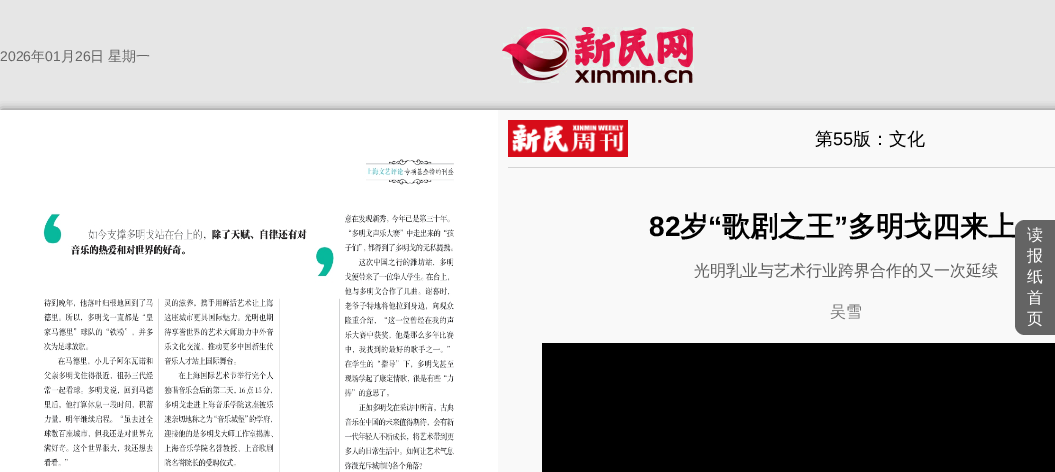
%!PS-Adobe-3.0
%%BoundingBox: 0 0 1055 472
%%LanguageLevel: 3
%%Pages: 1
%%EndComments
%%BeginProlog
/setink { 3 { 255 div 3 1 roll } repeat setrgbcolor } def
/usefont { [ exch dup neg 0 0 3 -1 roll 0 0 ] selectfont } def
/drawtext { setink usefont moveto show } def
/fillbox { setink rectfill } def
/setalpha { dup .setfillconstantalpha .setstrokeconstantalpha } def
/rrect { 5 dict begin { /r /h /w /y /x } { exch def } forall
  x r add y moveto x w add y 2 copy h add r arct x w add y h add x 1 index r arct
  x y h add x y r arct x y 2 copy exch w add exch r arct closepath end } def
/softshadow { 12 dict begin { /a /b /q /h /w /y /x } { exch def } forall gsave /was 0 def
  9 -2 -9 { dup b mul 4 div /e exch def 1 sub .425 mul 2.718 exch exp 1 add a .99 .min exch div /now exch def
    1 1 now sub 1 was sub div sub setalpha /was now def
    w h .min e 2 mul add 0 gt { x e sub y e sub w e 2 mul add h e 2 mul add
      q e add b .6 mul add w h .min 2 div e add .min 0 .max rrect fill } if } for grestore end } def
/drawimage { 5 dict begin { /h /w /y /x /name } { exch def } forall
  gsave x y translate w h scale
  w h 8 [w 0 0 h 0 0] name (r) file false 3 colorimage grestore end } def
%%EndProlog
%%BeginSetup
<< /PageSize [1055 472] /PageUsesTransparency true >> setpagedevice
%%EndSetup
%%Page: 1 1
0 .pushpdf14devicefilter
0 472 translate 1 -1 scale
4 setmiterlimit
0 0 1055 472 230 230 230 fillbox
(assets/img1.rgb) 502 27 192 56 drawimage
(2026) 0 61 /LiberationSans-Regular 14 103 103 103 drawtext
(年) 31 61 /WenQuanYiZenHei-Medium 14 103 103 103 drawtext
(01) 45 61 /LiberationSans-Regular 14 103 103 103 drawtext
(月) 61 61 /WenQuanYiZenHei-Medium 14 103 103 103 drawtext
(26) 75 61 /LiberationSans-Regular 14 103 103 103 drawtext
(日 星期一) 90 61 /WenQuanYiZenHei-Medium 14 103 103 103 drawtext
55 55 55 setink
2 112 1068 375 0 5 1 softshadow
0 110 498 362 255 255 255 fillbox
(assets/img2.rgb) 43 159 411 313 drawimage
498 110 557 362 249 249 249 fillbox
508 167 547 1 212 212 212 fillbox
(assets/img3.rgb) 508 120 120 37 drawimage
(第) 815 145 /WenQuanYiZenHei-Medium 18 0 0 0 drawtext
(55) 833 145 /LiberationSans-Regular 18 0 0 0 drawtext
(版：文化) 853 145 /WenQuanYiZenHei-Medium 18 0 0 0 drawtext
(82) 649 236 /LiberationSans-Bold 28 0 0 0 drawtext
(岁) 680 236 /WenQuanYiZenHei-Bold 28 0 0 0 drawtext
(“) 708 236 /LiberationSans-Bold 28 0 0 0 drawtext
(歌剧之王) 722 236 /WenQuanYiZenHei-Bold 28 0 0 0 drawtext
(”) 834 236 /LiberationSans-Bold 28 0 0 0 drawtext
(多明戈四来上) 848 236 /WenQuanYiZenHei-Bold 28 0 0 0 drawtext
(光明乳业与艺术行业跨界合作的又一次延续) 694 276 /WenQuanYiZenHei-Medium 16 94 94 94 drawtext
(吴雪) 830 317 /WenQuanYiZenHei-Medium 16 120 120 120 drawtext
542 343 513 129 0 0 0 fillbox
100 100 100 setink
1025 220 moveto 1055 220 lineto 1055 335 lineto 1025 335 lineto 1019.5 335 1015 330.5 1015 325 curveto 1015 230 lineto 1015 224.5 1019.5 220 1025 220 curveto closepath fill
255 255 255 setink
1027 240 moveto 1 0 (读) ashow
1027 261 moveto 1 0 (报) ashow
1027 282 moveto 1 0 (纸) ashow
1027 303 moveto 1 0 (首) ashow
1027 324 moveto 1 0 (页) ashow
.poppdf14devicefilter showpage
%%EOF
